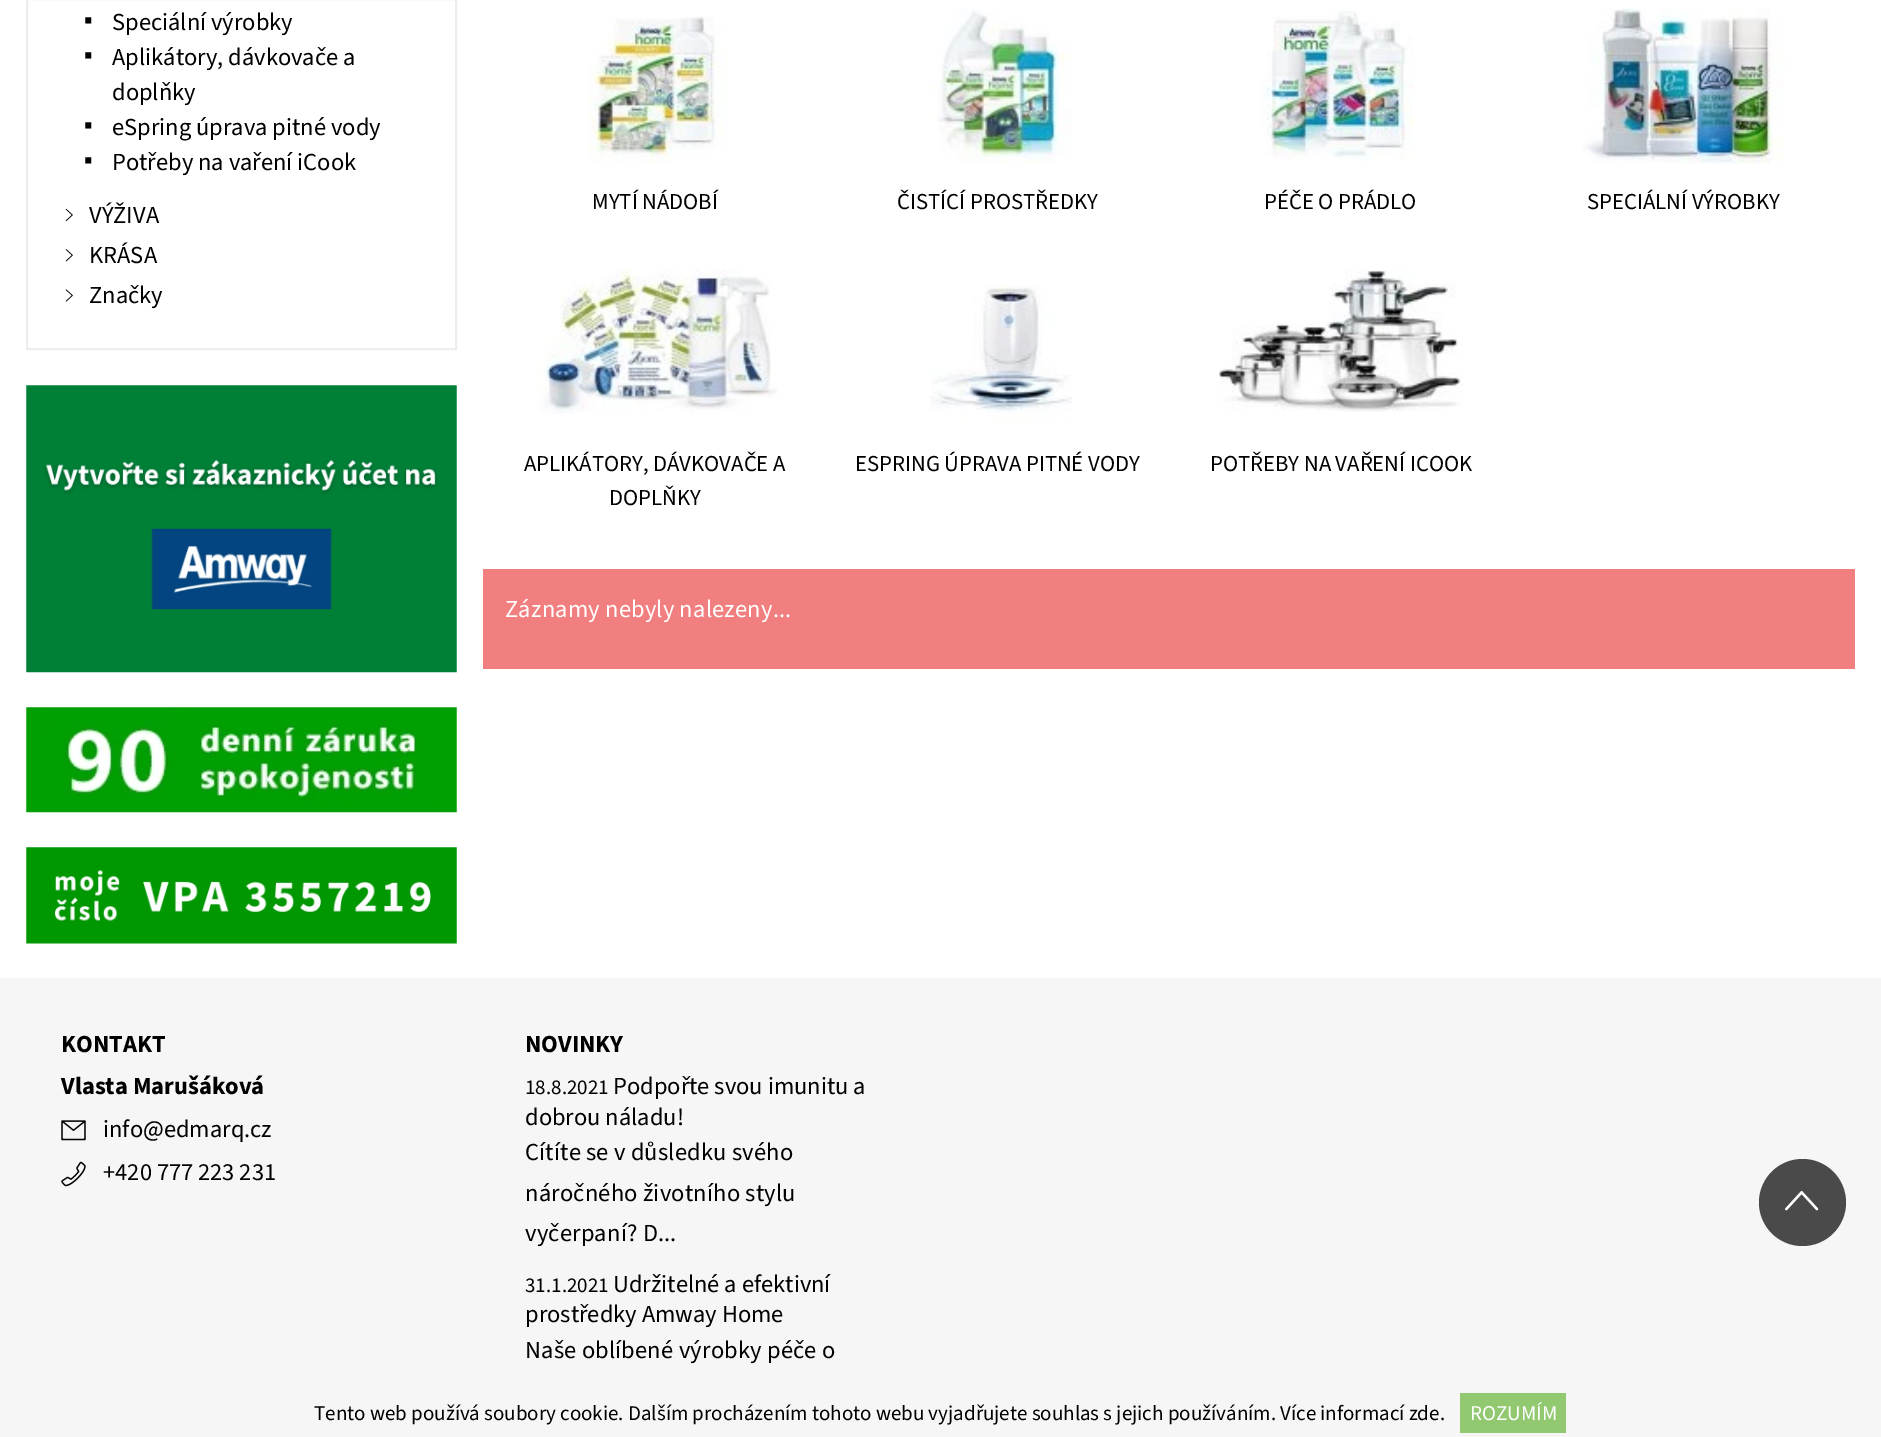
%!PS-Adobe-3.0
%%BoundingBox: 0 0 1881 1437
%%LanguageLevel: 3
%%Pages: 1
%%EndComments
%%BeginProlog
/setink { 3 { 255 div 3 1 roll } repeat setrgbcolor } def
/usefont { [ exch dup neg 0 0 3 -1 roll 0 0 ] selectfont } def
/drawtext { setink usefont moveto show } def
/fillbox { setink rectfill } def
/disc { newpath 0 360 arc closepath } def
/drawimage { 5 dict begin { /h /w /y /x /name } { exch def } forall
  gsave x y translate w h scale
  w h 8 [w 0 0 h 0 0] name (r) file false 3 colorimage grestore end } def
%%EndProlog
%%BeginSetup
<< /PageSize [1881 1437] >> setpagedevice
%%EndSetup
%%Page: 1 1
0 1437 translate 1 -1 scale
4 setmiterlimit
0 0 1881 1437 255 255 255 fillbox
237 237 237 setink
2 setlinewidth
27 -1 429 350 rectstroke
(▪) 84 28 /LiberationSerif-Regular 24.5 0 0 0 drawtext
(Speciální výrobky) 112 30 /SourceSans3-Regular 24.5 0 0 0 drawtext
(▪) 84 63 /LiberationSerif-Regular 24.5 0 0 0 drawtext
(Aplikátory, dávkovače a) 112 65 /SourceSans3-Regular 24.5 0 0 0 drawtext
(doplňky) 112 100 /SourceSans3-Regular 24.5 0 0 0 drawtext
(▪) 84 133 /LiberationSerif-Regular 24.5 0 0 0 drawtext
(eSpring úprava pitné vody) 112 135 /SourceSans3-Regular 24.5 0 0 0 drawtext
(▪) 84 168 /LiberationSerif-Regular 24.5 0 0 0 drawtext
(Potřeby na vaření iCook) 112 170 /SourceSans3-Regular 24.5 0 0 0 drawtext
(assets/img1.rgb) 65 208 8 14 drawimage
(VÝŽIVA) 89 223 /SourceSans3-Regular 24.5 0 0 0 drawtext
(assets/img2.rgb) 65 249 8 13 drawimage
(KRÁSA) 89 263 /SourceSans3-Regular 24.5 0 0 0 drawtext
(assets/img3.rgb) 65 289 8 13 drawimage
(Značky) 89 303 /SourceSans3-Regular 24.5 0 0 0 drawtext
(assets/img4.rgb) 26 385 431 288 drawimage
(assets/img5.rgb) 26 707 431 106 drawimage
(assets/img6.rgb) 26 847 431 97 drawimage
(assets/img7.rgb) 588 16 140 147 drawimage
(MYTÍ NÁDOBÍ) 592 209 /SourceSans3-Regular 22.75 0 0 0 drawtext
(assets/img8.rgb) 931 9 140 154 drawimage
(ČISTÍCÍ PROSTŘEDKY) 897 209 /SourceSans3-Regular 22.75 0 0 0 drawtext
(assets/img9.rgb) 1260 10 154 151 drawimage
(PÉČE O PRÁDLO) 1264 209 /SourceSans3-Regular 22.75 0 0 0 drawtext
(assets/img10.rgb) 1583 8 202 156 drawimage
(SPECIÁLNÍ VÝROBKY) 1587 209 /SourceSans3-Regular 22.75 0 0 0 drawtext
(assets/img11.rgb) 538 269 239 145 drawimage
(APLIKÁTORY, DÁVKOVAČE A) 524 471 /SourceSans3-Regular 22.75 0 0 0 drawtext
(DOPLŇKY) 609 505 /SourceSans3-Regular 22.75 0 0 0 drawtext
(assets/img12.rgb) 930 285 142 137 drawimage
(ESPRING ÚPRAVA PITNÉ VODY) 855 471 /SourceSans3-Regular 22.75 0 0 0 drawtext
(assets/img13.rgb) 1219 270 244 142 drawimage
(POTŘEBY NA VAŘENÍ ICOOK) 1210 471 /SourceSans3-Regular 22.75 0 0 0 drawtext
483 569 1372 100 241 127 127 fillbox
/SourceSans3-Regular 24.5 usefont
255 255 255 setink
505 617 moveto 0.2 0 (Záznamy nebyly nalezeny...) ashow
0 978 1881 459 246 246 246 fillbox
(KONTAKT) 61 1052 /SourceSans3-Bold 24.5 0 0 0 drawtext
(Vlasta Marušáková) 61 1094 /SourceSans3-Bold 24.5 0 0 0 drawtext
(assets/img14.rgb) 61 1120 25 21 drawimage
(info@edmarq.cz) 103 1137 /SourceSans3-Regular 24.5 0 0 0 drawtext
(assets/img15.rgb) 61 1161 25 26 drawimage
(+420 777 223 231) 103 1180 /SourceSans3-Regular 24.5 0 0 0 drawtext
(NOVINKY) 525 1052 /SourceSans3-Bold 24.5 0 0 0 drawtext
(18.8.2021) 525 1094 /SourceSans3-Regular 21 0 0 0 drawtext
(Podpořte svou imunitu a) 613 1094 /SourceSans3-Regular 24.5 0 0 0 drawtext
(dobrou náladu!) 525 1125 /SourceSans3-Regular 24.5 0 0 0 drawtext
525 1160 moveto 0.2 0 (Cítíte se v důsledku svého) ashow
525 1201 moveto 0.2 0 (náročného životního stylu) ashow
525 1241 moveto 0.2 0 (vyčerpaní? D...) ashow
(31.1.2021) 525 1292 /SourceSans3-Regular 21 0 0 0 drawtext
(Udržitelné a efektivní) 613 1292 /SourceSans3-Regular 24.5 0 0 0 drawtext
(prostředky Amway Home) 525 1322 /SourceSans3-Regular 24.5 0 0 0 drawtext
525 1358 moveto 0.2 0 (Naše oblíbené výrobky péče o) ashow
74 74 74 setink
1802.5 1202.5 43.5 disc fill
(assets/img16.rgb) 1785 1191 34 20 drawimage
(Tento web používá soubory cookie. Dalším procházením tohoto webu vyjadřujete souhlas s jejich používáním. Více informací zde.) 314 1420 /SourceSans3-Regular 21 0 0 0 drawtext
1460 1393 106 40 145 200 112 fillbox
(ROZUMÍM) 1470 1420 /SourceSans3-Regular 21 255 255 255 drawtext
showpage
%%EOF
